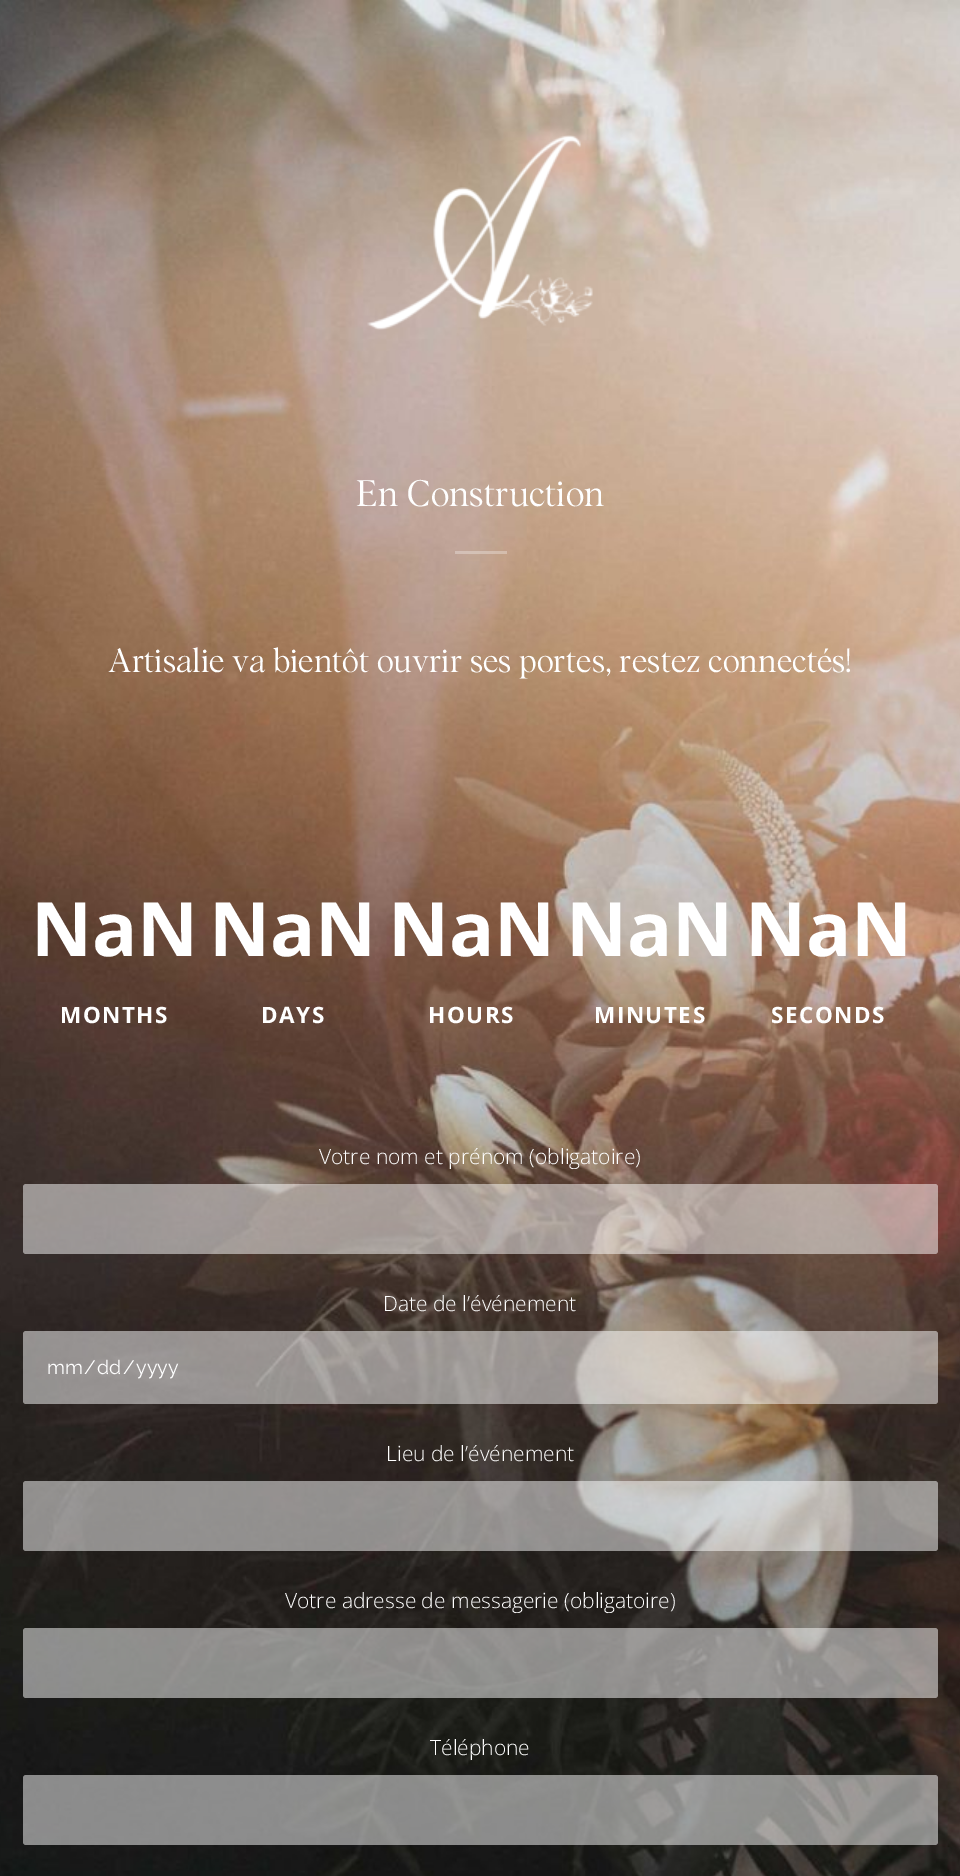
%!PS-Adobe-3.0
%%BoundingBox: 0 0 960 1876
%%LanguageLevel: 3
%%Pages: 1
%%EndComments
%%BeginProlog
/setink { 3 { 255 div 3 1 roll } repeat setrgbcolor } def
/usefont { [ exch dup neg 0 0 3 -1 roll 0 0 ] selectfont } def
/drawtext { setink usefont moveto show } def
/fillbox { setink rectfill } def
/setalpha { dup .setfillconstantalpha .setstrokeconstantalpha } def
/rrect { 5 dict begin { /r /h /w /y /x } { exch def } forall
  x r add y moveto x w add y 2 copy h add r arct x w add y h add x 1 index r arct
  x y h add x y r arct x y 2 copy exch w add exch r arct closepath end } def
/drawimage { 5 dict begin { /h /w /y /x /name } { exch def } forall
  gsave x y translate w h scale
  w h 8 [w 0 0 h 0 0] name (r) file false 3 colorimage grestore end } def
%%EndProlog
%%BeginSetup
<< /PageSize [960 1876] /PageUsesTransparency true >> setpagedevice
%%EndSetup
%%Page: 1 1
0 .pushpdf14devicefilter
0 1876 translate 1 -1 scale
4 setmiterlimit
0 0 960 1876 255 255 255 fillbox
(assets/img1.rgb) 0 0 960 1876 drawimage
(assets/img2.rgb) 367 135 226 195 drawimage
/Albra-Light 36 usefont
356 506 moveto 0.1 0 (En Construction) ashow
0.3 setalpha
455 551 52 3 255 255 255 fillbox
1 setalpha
(Artisalie va bientôt ouvrir ses portes, restez connectés!) 108 672 /Albra-Light 33 255 255 255 drawtext
(NaN) 31 956 /OpenSans-Bold 75 255 255 255 drawtext
/OpenSans-Bold 22.5 usefont
60 1023 moveto 1.5 0 (MONTHS) ashow
(NaN) 209 956 /OpenSans-Bold 75 255 255 255 drawtext
/OpenSans-Bold 22.5 usefont
261 1023 moveto 1.5 0 (DAYS) ashow
(NaN) 388 956 /OpenSans-Bold 75 255 255 255 drawtext
/OpenSans-Bold 22.5 usefont
428 1023 moveto 1.5 0 (HOURS) ashow
(NaN) 566 956 /OpenSans-Bold 75 255 255 255 drawtext
/OpenSans-Bold 22.5 usefont
594 1023 moveto 1.5 0 (MINUTES) ashow
(NaN) 745 956 /OpenSans-Bold 75 255 255 255 drawtext
/OpenSans-Bold 22.5 usefont
771 1023 moveto 1.5 0 (SECONDS) ashow
(Votre nom et prénom \(obligatoire\)) 319 1164 /OpenSans-Light 21 255 255 255 drawtext
0.5 setalpha
23 1184 915 70 3 rrect fill
1 setalpha
(Date de l’événement) 383 1311 /OpenSans-Light 21 255 255 255 drawtext
0.5 setalpha
23 1331 915 73 3 rrect fill
1 setalpha
(mm) 47 1374 /Raleway-Regular 19.5 255 255 255 drawtext
(/) 84 1374 /Raleway-Regular 19.5 255 255 255 drawtext
(dd) 97 1374 /Raleway-Regular 19.5 255 255 255 drawtext
(/) 123 1374 /Raleway-Regular 19.5 255 255 255 drawtext
(yyyy) 136 1374 /Raleway-Regular 19.5 255 255 255 drawtext
(Lieu de l’événement) 386 1461 /OpenSans-Light 21 255 255 255 drawtext
0.5 setalpha
23 1481 915 70 3 rrect fill
1 setalpha
(Votre adresse de messagerie \(obligatoire\)) 285 1608 /OpenSans-Light 21 255 255 255 drawtext
0.5 setalpha
23 1628 915 70 3 rrect fill
1 setalpha
(Téléphone) 430 1755 /OpenSans-Light 21 255 255 255 drawtext
0.5 setalpha
23 1775 915 70 3 rrect fill
.poppdf14devicefilter showpage
%%EOF
